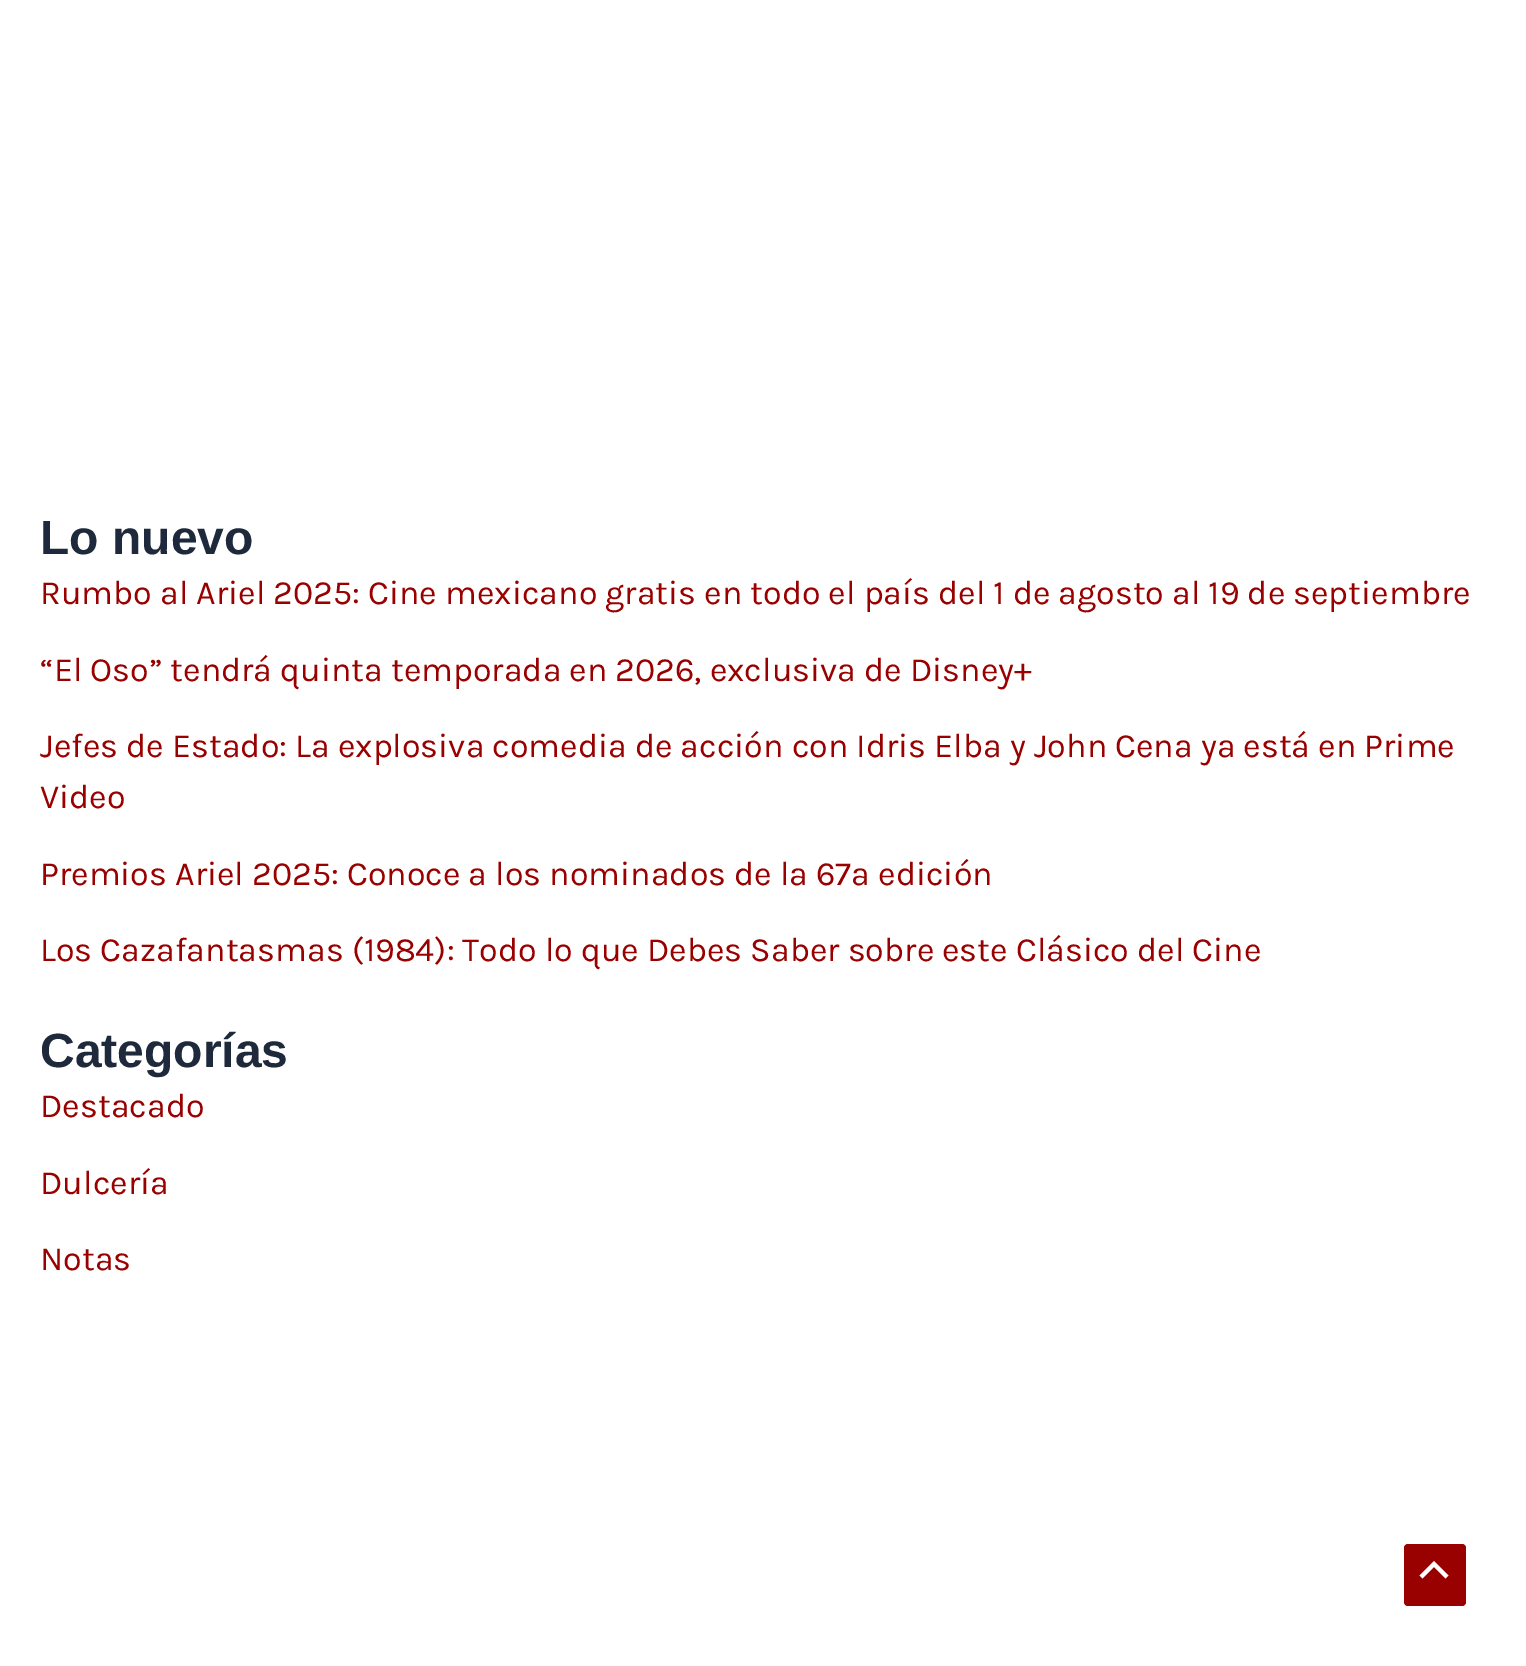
%!PS-Adobe-3.0
%%BoundingBox: 0 0 1526 1666
%%LanguageLevel: 3
%%Pages: 1
%%EndComments
%%BeginProlog
/setink { 3 { 255 div 3 1 roll } repeat setrgbcolor } def
/usefont { [ exch dup neg 0 0 3 -1 roll 0 0 ] selectfont } def
/drawtext { setink usefont moveto show } def
/fillbox { setink rectfill } def
/rrect { 5 dict begin { /r /h /w /y /x } { exch def } forall
  x r add y moveto x w add y 2 copy h add r arct x w add y h add x 1 index r arct
  x y h add x y r arct x y 2 copy exch w add exch r arct closepath end } def
%%EndProlog
%%BeginSetup
<< /PageSize [1526 1666] >> setpagedevice
%%EndSetup
%%Page: 1 1
0 1666 translate 1 -1 scale
4 setmiterlimit
0 0 1526 1666 255 255 255 fillbox
(Lo nuevo) 40 554 /LiberationSans-Bold 48 30 41 59 drawtext
(Rumbo al Ariel 2025: Cine mexicano gratis en todo el país del 1 de agosto al 19 de septiembre) 40 604 /Karla-Regular 34 153 0 0 drawtext
(“El Oso” tendrá quinta temporada en 2026, exclusiva de Disney+) 40 681 /Karla-Regular 34 153 0 0 drawtext
(Jefes de Estado: La explosiva comedia de acción con Idris Elba y John Cena ya está en Prime) 40 757 /Karla-Regular 34 153 0 0 drawtext
(Video) 40 808 /Karla-Regular 34 153 0 0 drawtext
(Premios Ariel 2025: Conoce a los nominados de la 67ª edición) 40 885 /Karla-Regular 34 153 0 0 drawtext
(Los Cazafantasmas \(1984\): Todo lo que Debes Saber sobre este Clásico del Cine) 40 961 /Karla-Regular 34 153 0 0 drawtext
(Categorías) 40 1067 /LiberationSans-Bold 48 30 41 59 drawtext
(Destacado) 40 1117 /Karla-Regular 34 153 0 0 drawtext
(Dulcería) 40 1194 /Karla-Regular 34 153 0 0 drawtext
(Notas) 40 1270 /Karla-Regular 34 153 0 0 drawtext
1404 1544 62 62 4 rrect fill
255 255 255 setink
1448.5 1575.5 moveto 1434 1561 lineto 1419.5 1575.5 lineto 1422.5 1578.5 lineto 1434 1567 lineto 1445.5 1578.5 lineto closepath fill
showpage
%%EOF
